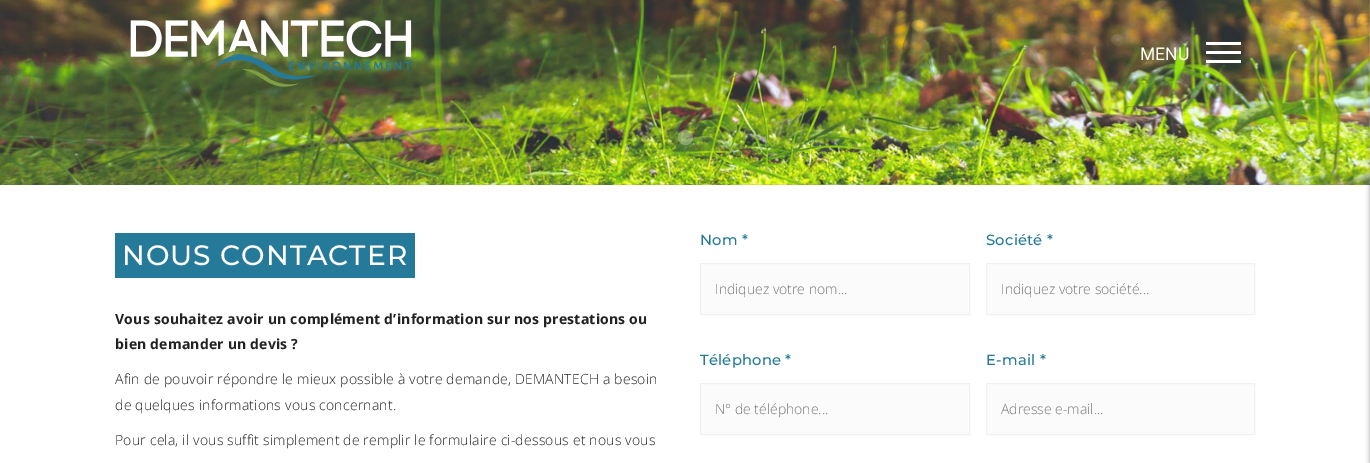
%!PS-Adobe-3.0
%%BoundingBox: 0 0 1370 463
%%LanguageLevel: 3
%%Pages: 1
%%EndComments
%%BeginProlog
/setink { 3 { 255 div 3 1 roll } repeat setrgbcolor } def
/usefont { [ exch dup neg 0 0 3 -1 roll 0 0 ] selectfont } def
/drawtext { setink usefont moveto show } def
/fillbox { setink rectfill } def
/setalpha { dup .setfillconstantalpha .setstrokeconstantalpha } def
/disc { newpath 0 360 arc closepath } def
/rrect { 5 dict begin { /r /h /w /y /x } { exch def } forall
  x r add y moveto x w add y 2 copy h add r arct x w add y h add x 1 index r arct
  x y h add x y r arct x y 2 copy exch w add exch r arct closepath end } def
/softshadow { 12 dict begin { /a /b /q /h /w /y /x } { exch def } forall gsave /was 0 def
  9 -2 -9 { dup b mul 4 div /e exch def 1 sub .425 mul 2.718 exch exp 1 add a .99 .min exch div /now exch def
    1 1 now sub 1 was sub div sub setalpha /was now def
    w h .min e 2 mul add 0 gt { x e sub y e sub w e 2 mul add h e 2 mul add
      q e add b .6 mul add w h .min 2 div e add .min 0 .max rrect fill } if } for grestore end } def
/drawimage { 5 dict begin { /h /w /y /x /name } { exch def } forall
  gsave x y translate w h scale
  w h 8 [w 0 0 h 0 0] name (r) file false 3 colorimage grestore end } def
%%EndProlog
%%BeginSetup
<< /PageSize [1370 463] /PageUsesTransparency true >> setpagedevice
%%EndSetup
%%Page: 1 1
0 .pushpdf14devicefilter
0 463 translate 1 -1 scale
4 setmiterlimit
0 0 1370 463 255 255 255 fillbox
0 184 1370 1 153 153 153 fillbox
(assets/img2.rgb) 0 0 1370 185 drawimage
(assets/img1.rgb) 130 20 282 67 drawimage
(MENU) 1140 60 /Roboto-Regular 17.5 255 255 255 drawtext
1206 42 35 3 1 rrect fill
1206 51 35 3 1 rrect fill
1206 60 35 3 1 rrect fill
0 0 0 setink
1369 0 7 463 0 2 0.25 softshadow
0.3 setalpha
255 255 255 setink
685.5 137.5 7.5 disc fill
1 setalpha
115 233 300 45 37 121 153 fillbox
/Montserrat-Medium 28 usefont
255 255 255 setink
122 265 moveto 1 0 (NOUS CONTACTER) ashow
/OpenSans-Bold 14 usefont
34 34 34 setink
115 324 moveto 0.2 0 (Vous souhaitez avoir un complément d’information sur nos prestations ou) ashow
115 349 moveto 0.2 0 (bien demander un devis ?) ashow
/OpenSans-Light 14 usefont
115 384 moveto 0.2 0 (Afin de pouvoir répondre le mieux possible à votre demande, DEMANTECH a besoin) ashow
115 410 moveto 0.2 0 (de quelques informations vous concernant.) ashow
115 445 moveto 0.2 0 (Pour cela, il vous suffit simplement de remplir le formulaire ci-dessous et nous vous) ashow
/Montserrat-Medium 14.75 usefont
37 121 153 setink
700 245 moveto 0.2 0 (Nom *) ashow
251 251 251 setink
700.5 263.5 moveto 969.5 263.5 lineto 969.5 314.5 lineto 700.5 314.5 lineto closepath gsave fill grestore
240 240 240 setink
stroke
(Indiquez votre nom...) 715 294 /OpenSans-Light 14 117 117 117 drawtext
/Montserrat-Medium 14.75 usefont
37 121 153 setink
986 245 moveto 0.2 0 (Société *) ashow
251 251 251 setink
986.5 263.5 moveto 1254.5 263.5 lineto 1254.5 314.5 lineto 986.5 314.5 lineto closepath gsave fill grestore
240 240 240 setink
stroke
(Indiquez votre société...) 1001 294 /OpenSans-Light 14 117 117 117 drawtext
/Montserrat-Medium 14.75 usefont
37 121 153 setink
700 365 moveto 0.2 0 (Téléphone *) ashow
251 251 251 setink
700.5 383.5 moveto 969.5 383.5 lineto 969.5 434.5 lineto 700.5 434.5 lineto closepath gsave fill grestore
240 240 240 setink
stroke
(N° de téléphone...) 715 414 /OpenSans-Light 14 117 117 117 drawtext
/Montserrat-Medium 14.75 usefont
37 121 153 setink
986 365 moveto 0.2 0 (E-mail *) ashow
251 251 251 setink
986.5 383.5 moveto 1254.5 383.5 lineto 1254.5 434.5 lineto 986.5 434.5 lineto closepath gsave fill grestore
240 240 240 setink
stroke
(Adresse e-mail...) 1001 414 /OpenSans-Light 14 117 117 117 drawtext
.poppdf14devicefilter showpage
%%EOF
